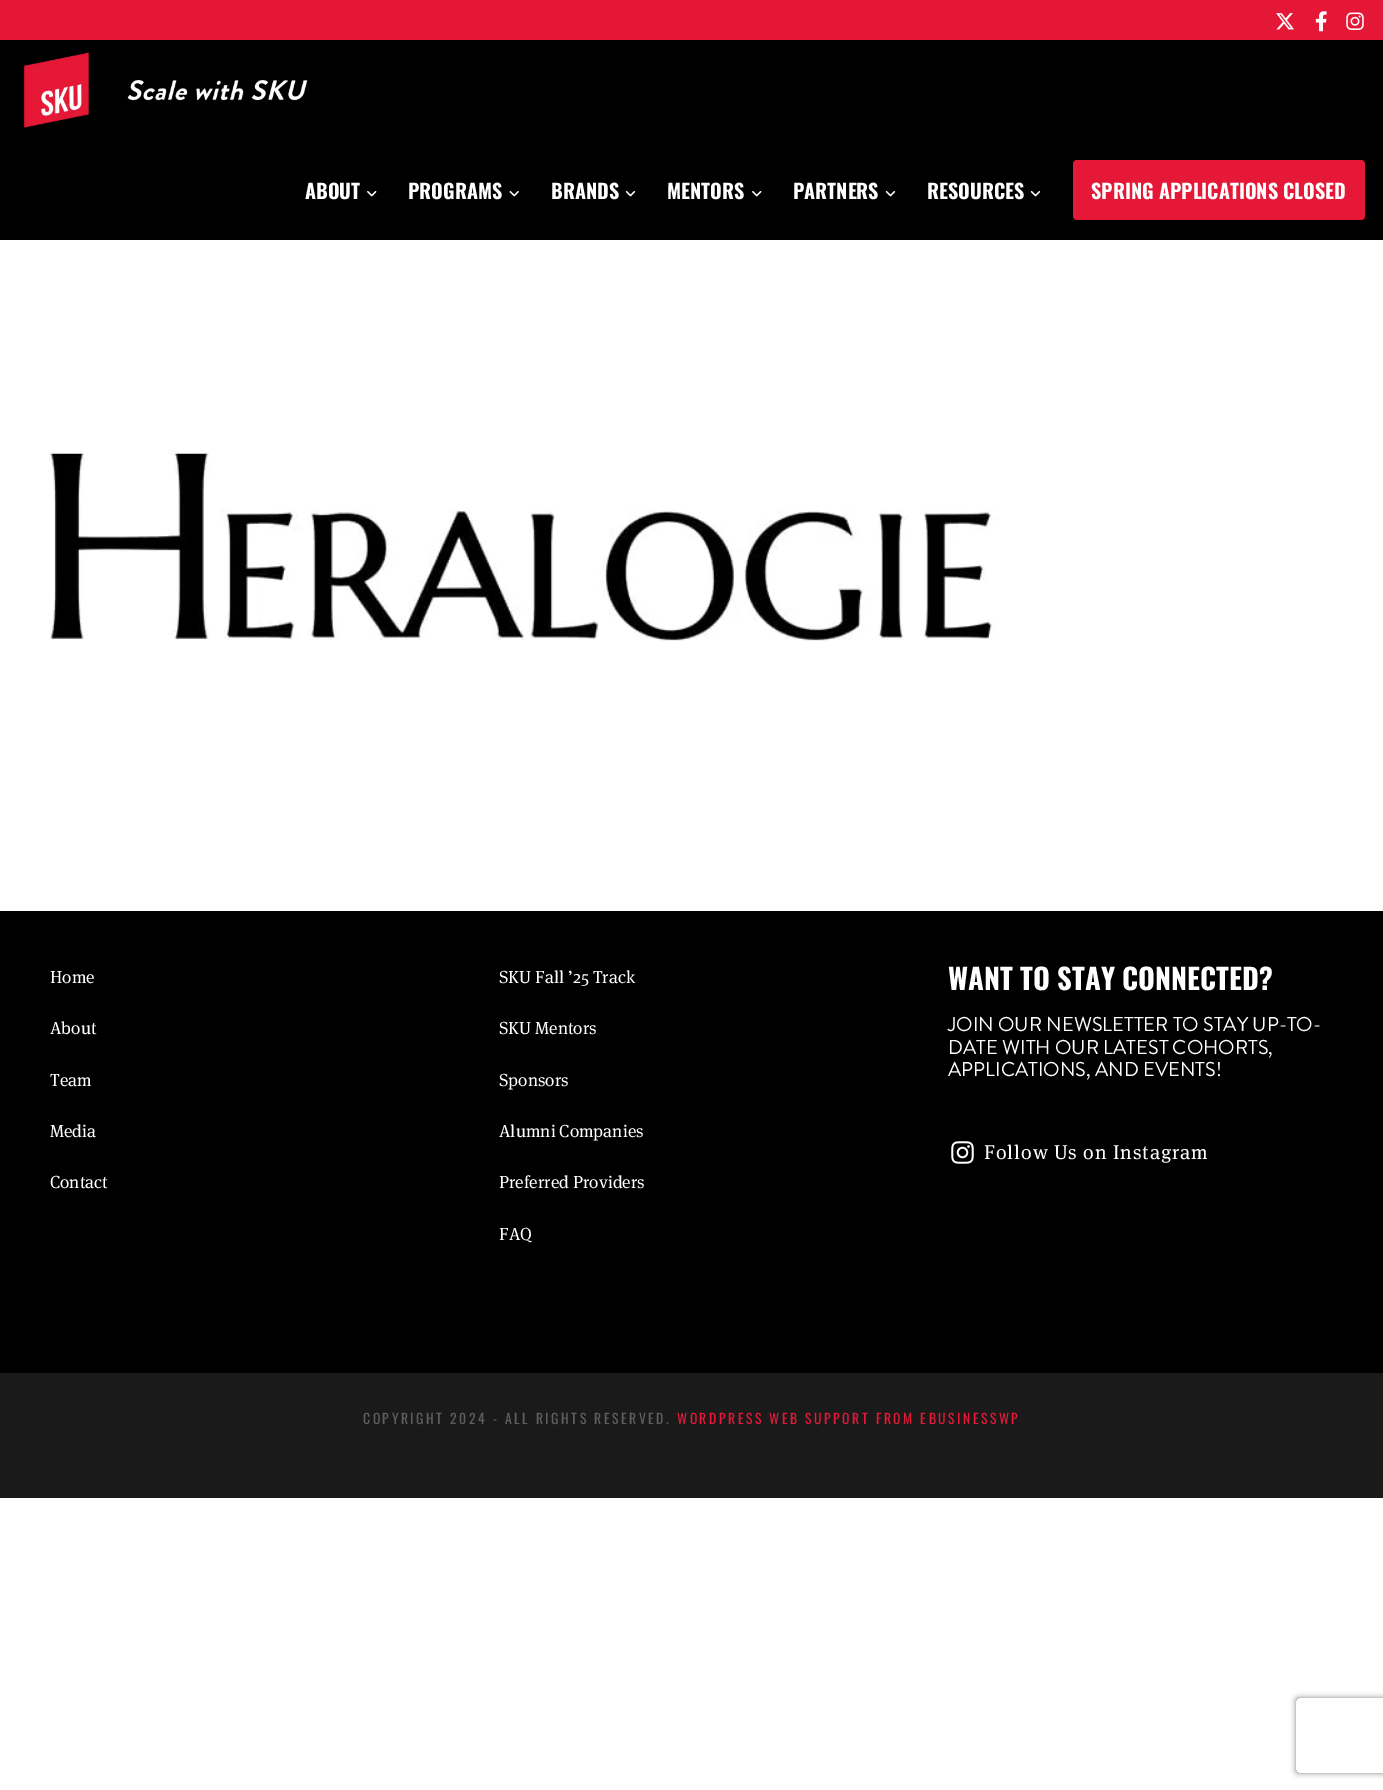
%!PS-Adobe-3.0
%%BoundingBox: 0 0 1383 1790
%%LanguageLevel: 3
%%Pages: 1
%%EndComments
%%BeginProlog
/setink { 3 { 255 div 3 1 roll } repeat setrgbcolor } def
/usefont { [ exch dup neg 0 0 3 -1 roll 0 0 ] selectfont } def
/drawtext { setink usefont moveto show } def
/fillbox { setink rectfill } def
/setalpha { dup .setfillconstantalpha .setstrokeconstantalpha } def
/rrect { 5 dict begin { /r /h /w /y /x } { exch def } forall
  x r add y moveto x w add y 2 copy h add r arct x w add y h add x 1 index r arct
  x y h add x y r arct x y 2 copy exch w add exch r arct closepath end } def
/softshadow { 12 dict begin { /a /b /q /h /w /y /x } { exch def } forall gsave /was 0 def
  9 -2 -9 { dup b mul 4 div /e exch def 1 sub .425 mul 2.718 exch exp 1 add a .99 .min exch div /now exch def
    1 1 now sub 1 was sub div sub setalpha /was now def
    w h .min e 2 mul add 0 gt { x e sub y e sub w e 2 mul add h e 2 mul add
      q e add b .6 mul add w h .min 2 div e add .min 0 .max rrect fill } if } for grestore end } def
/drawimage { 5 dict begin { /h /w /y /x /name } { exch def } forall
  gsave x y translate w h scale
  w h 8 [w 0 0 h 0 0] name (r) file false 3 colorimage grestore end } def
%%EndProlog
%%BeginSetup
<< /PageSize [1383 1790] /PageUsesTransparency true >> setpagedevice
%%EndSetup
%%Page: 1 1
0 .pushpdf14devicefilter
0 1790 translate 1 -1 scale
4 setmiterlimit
0 0 1383 1790 255 255 255 fillbox
0 0 1383 40 229 23 55 fillbox
(assets/img1.rgb) 1276 13 18 17 drawimage
(assets/img2.rgb) 1315 11 12 21 drawimage
(assets/img3.rgb) 1346 12 18 18 drawimage
0 40 1383 200 0 0 0 fillbox
(assets/img4.rgb) 23 52 285 76 drawimage
(ABOUT) 305 199 /Oswald-Bold 20 255 255 255 drawtext
(assets/img5.rgb) 367 191 10 6 drawimage
(PROGRAMS) 408 199 /Oswald-Bold 20 255 255 255 drawtext
(assets/img6.rgb) 509 191 10 6 drawimage
(BRANDS) 551 199 /Oswald-Bold 20 255 255 255 drawtext
(assets/img7.rgb) 625 191 11 6 drawimage
(MENTORS) 667 199 /Oswald-Bold 20 255 255 255 drawtext
(assets/img5.rgb) 752 191 10 6 drawimage
(PARTNERS) 793 199 /Oswald-Bold 20 255 255 255 drawtext
(assets/img7.rgb) 885 191 11 6 drawimage
(RESOURCES) 927 199 /Oswald-Bold 20 255 255 255 drawtext
(assets/img7.rgb) 1030 191 11 6 drawimage
229 24 55 setink
1073 160 292 60 4 rrect fill
(SPRING APPLICATIONS CLOSED) 1091 199 /Oswald-Bold 20 255 255 255 drawtext
(assets/img8.rgb) 49 450 950 191 drawimage
0 911 1383 462 0 0 0 fillbox
(Home) 50 983 /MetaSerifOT-Regular 17.5 255 255 255 drawtext
(About) 50 1034 /MetaSerifOT-Regular 17.5 255 255 255 drawtext
(Team) 50 1086 /MetaSerifOT-Regular 17.5 255 255 255 drawtext
(Media) 50 1137 /MetaSerifOT-Regular 17.5 255 255 255 drawtext
(Contact) 50 1188 /MetaSerifOT-Regular 17.5 255 255 255 drawtext
(SKU Fall ’25 Track) 499 983 /MetaSerifOT-Regular 17.5 255 255 255 drawtext
(SKU Mentors) 499 1034 /MetaSerifOT-Regular 17.5 255 255 255 drawtext
(Sponsors) 499 1086 /MetaSerifOT-Regular 17.5 255 255 255 drawtext
(Alumni Companies) 499 1137 /MetaSerifOT-Regular 17.5 255 255 255 drawtext
(Preferred Providers) 499 1188 /MetaSerifOT-Regular 17.5 255 255 255 drawtext
(FAQ) 499 1240 /MetaSerifOT-Regular 17.5 255 255 255 drawtext
(WANT TO STAY CONNECTED?) 948 990 /Oswald-Bold 28.75 255 255 255 drawtext
(JOIN OUR NEWSLETTER TO STAY UP-TO-) 948 1031 /BrandonGrotesque-Regular 20 255 255 255 drawtext
(DATE WITH OUR LATEST COHORTS,) 948 1054 /BrandonGrotesque-Regular 20 255 255 255 drawtext
(APPLICATIONS, AND EVENTS!) 948 1076 /BrandonGrotesque-Regular 20 255 255 255 drawtext
(assets/img9.rgb) 951 1141 23 23 drawimage
/MetaSerifOT-Regular 20 usefont
984 1159 moveto 0.9 0 (Follow Us on Instagram) ashow
0 1373 1383 125 26 26 26 fillbox
/Oswald-Regular 13.75 usefont
95 95 95 setink
363 1424 moveto 2.5 0 (COPYRIGHT 2024 - ALL RIGHTS RESERVED.) ashow
229 24 55 setink
677 1424 moveto 2.5 0 (WORDPRESS WEB SUPPORT FROM EBUSINESSWP) ashow
gsave
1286 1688 moveto 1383 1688 lineto 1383 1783 lineto 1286 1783 lineto closepath 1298.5 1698 moveto 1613.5 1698 lineto 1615 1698 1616 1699 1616 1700.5 curveto 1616 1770.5 lineto 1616 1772 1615 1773 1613.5 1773 curveto 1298.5 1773 lineto 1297 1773 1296 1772 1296 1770.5 curveto 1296 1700.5 lineto 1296 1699 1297 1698 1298.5 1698 curveto closepath eoclip newpath
128 128 128 setink
1296 1698 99 75 2.5 3 1 softshadow
grestore
.poppdf14devicefilter showpage
%%EOF
